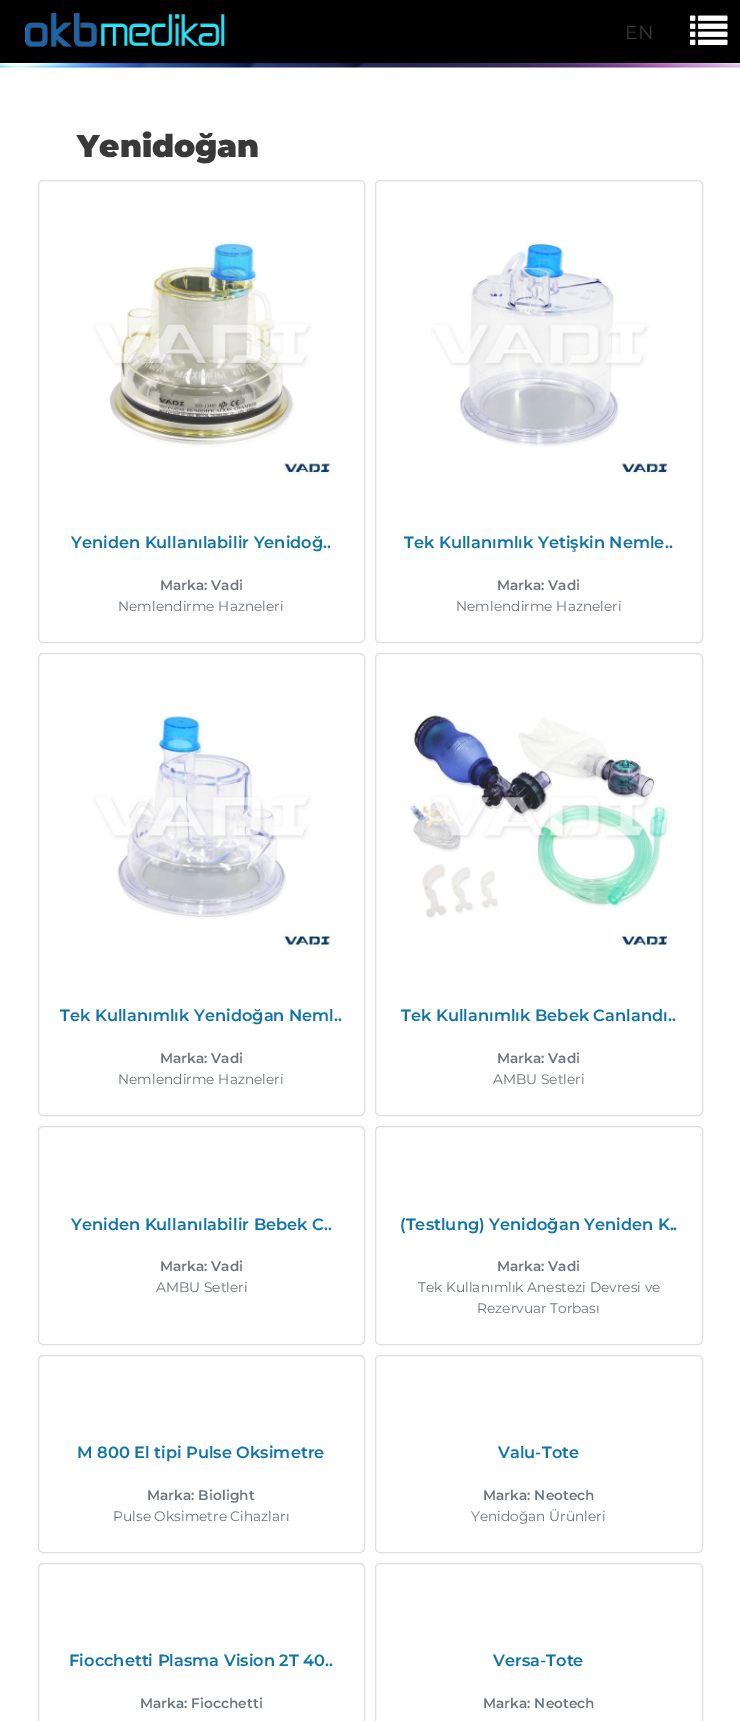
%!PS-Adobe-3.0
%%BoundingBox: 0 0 740 1721
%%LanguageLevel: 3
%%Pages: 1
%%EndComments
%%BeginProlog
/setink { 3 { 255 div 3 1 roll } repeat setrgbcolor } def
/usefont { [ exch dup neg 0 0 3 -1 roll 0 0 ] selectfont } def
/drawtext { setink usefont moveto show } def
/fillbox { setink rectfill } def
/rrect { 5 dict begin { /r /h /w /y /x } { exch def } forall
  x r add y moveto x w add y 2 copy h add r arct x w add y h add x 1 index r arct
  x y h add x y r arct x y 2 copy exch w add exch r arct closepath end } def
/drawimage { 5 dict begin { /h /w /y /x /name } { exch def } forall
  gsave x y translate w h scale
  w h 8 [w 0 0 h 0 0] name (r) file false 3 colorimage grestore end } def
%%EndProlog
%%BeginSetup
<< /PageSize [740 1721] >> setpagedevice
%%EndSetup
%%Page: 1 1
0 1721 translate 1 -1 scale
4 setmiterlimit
0 0 740 1721 255 255 255 fillbox
0 0 740 63 0 0 0 fillbox
(assets/img1.rgb) 25 13 200 34 drawimage
(EN) 625 39 /Montserrat-Regular 19 57 57 57 drawtext
(assets/img2.rgb) 690 15 38 30 drawimage
(assets/img3.rgb) 0 63 740 5 drawimage
(Yenidoğan) 77 157 /Montserrat-Black 31.25 57 57 57 drawtext
223 223 223 setink
38.5 180.5 326 462 4.5 rrect stroke
(assets/img4.rgb) 93 239 240 236 drawimage
(Yeniden Kullanılabilir Yenidoğ..) 71 548 /Montserrat-SemiBold 16.25 15 116 168 drawtext
(Marka: Vadi) 160 590 /Montserrat-SemiBold 13.75 108 117 125 drawtext
(Nemlendirme Hazneleri) 118 611 /Montserrat-Regular 13.75 108 117 125 drawtext
223 223 223 setink
375.5 180.5 327 462 4.5 rrect stroke
(assets/img5.rgb) 431 239 239 236 drawimage
(Tek Kullanımlık Yetişkin Nemle..) 404 548 /Montserrat-SemiBold 16.25 15 116 168 drawtext
(Marka: Vadi) 497 590 /Montserrat-SemiBold 13.75 108 117 125 drawtext
(Nemlendirme Hazneleri) 456 611 /Montserrat-Regular 13.75 108 117 125 drawtext
223 223 223 setink
38.5 653.5 326 462 4.5 rrect stroke
(assets/img6.rgb) 93 712 240 236 drawimage
(Tek Kullanımlık Yenidoğan Neml..) 60 1021 /Montserrat-SemiBold 16.25 15 116 168 drawtext
(Marka: Vadi) 160 1063 /Montserrat-SemiBold 13.75 108 117 125 drawtext
(Nemlendirme Hazneleri) 118 1084 /Montserrat-Regular 13.75 108 117 125 drawtext
223 223 223 setink
375.5 653.5 327 462 4.5 rrect stroke
(assets/img7.rgb) 410 712 260 236 drawimage
(Tek Kullanımlık Bebek Canlandı..) 401 1021 /Montserrat-SemiBold 16.25 15 116 168 drawtext
(Marka: Vadi) 497 1063 /Montserrat-SemiBold 13.75 108 117 125 drawtext
(AMBU Setleri) 493 1084 /Montserrat-Regular 13.75 108 117 125 drawtext
223 223 223 setink
38.5 1126.5 326 218 4.5 rrect stroke
(Yeniden Kullanılabilir Bebek C..) 71 1230 /Montserrat-SemiBold 16.25 15 116 168 drawtext
(Marka: Vadi) 160 1271 /Montserrat-SemiBold 13.75 108 117 125 drawtext
(AMBU Setleri) 156 1292 /Montserrat-Regular 13.75 108 117 125 drawtext
223 223 223 setink
375.5 1126.5 327 218 4.5 rrect stroke
(\(Testlung\) Yenidoğan Yeniden K..) 400 1230 /Montserrat-SemiBold 16.25 15 116 168 drawtext
(Marka: Vadi) 497 1271 /Montserrat-SemiBold 13.75 108 117 125 drawtext
(Tek Kullanımlık Anestezi Devresi ve) 418 1292 /Montserrat-Regular 13.75 108 117 125 drawtext
(Rezervuar Torbası) 477 1313 /Montserrat-Regular 13.75 108 117 125 drawtext
223 223 223 setink
38.5 1355.5 326 197 4.5 rrect stroke
(M 800 El tipi Pulse Oksimetre) 77 1458 /Montserrat-SemiBold 16.25 15 116 168 drawtext
(Marka: Biolight) 147 1500 /Montserrat-SemiBold 13.75 108 117 125 drawtext
(Pulse Oksimetre Cihazları) 113 1521 /Montserrat-Regular 13.75 108 117 125 drawtext
223 223 223 setink
375.5 1355.5 327 197 4.5 rrect stroke
(Valu-Tote) 498 1458 /Montserrat-SemiBold 16.25 15 116 168 drawtext
(Marka: Neotech) 483 1500 /Montserrat-SemiBold 13.75 108 117 125 drawtext
(Yenidoğan Ürünleri) 471 1521 /Montserrat-Regular 13.75 108 117 125 drawtext
223 223 223 setink
38.5 1563.5 326 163 4.5 rrect stroke
(Fiocchetti Plasma Vision 2T 40..) 69 1666 /Montserrat-SemiBold 16.25 15 116 168 drawtext
(Marka: Fiocchetti) 140 1708 /Montserrat-SemiBold 13.75 108 117 125 drawtext
223 223 223 setink
375.5 1563.5 327 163 4.5 rrect stroke
(Versa-Tote) 493 1666 /Montserrat-SemiBold 16.25 15 116 168 drawtext
(Marka: Neotech) 483 1708 /Montserrat-SemiBold 13.75 108 117 125 drawtext
showpage
%%EOF
